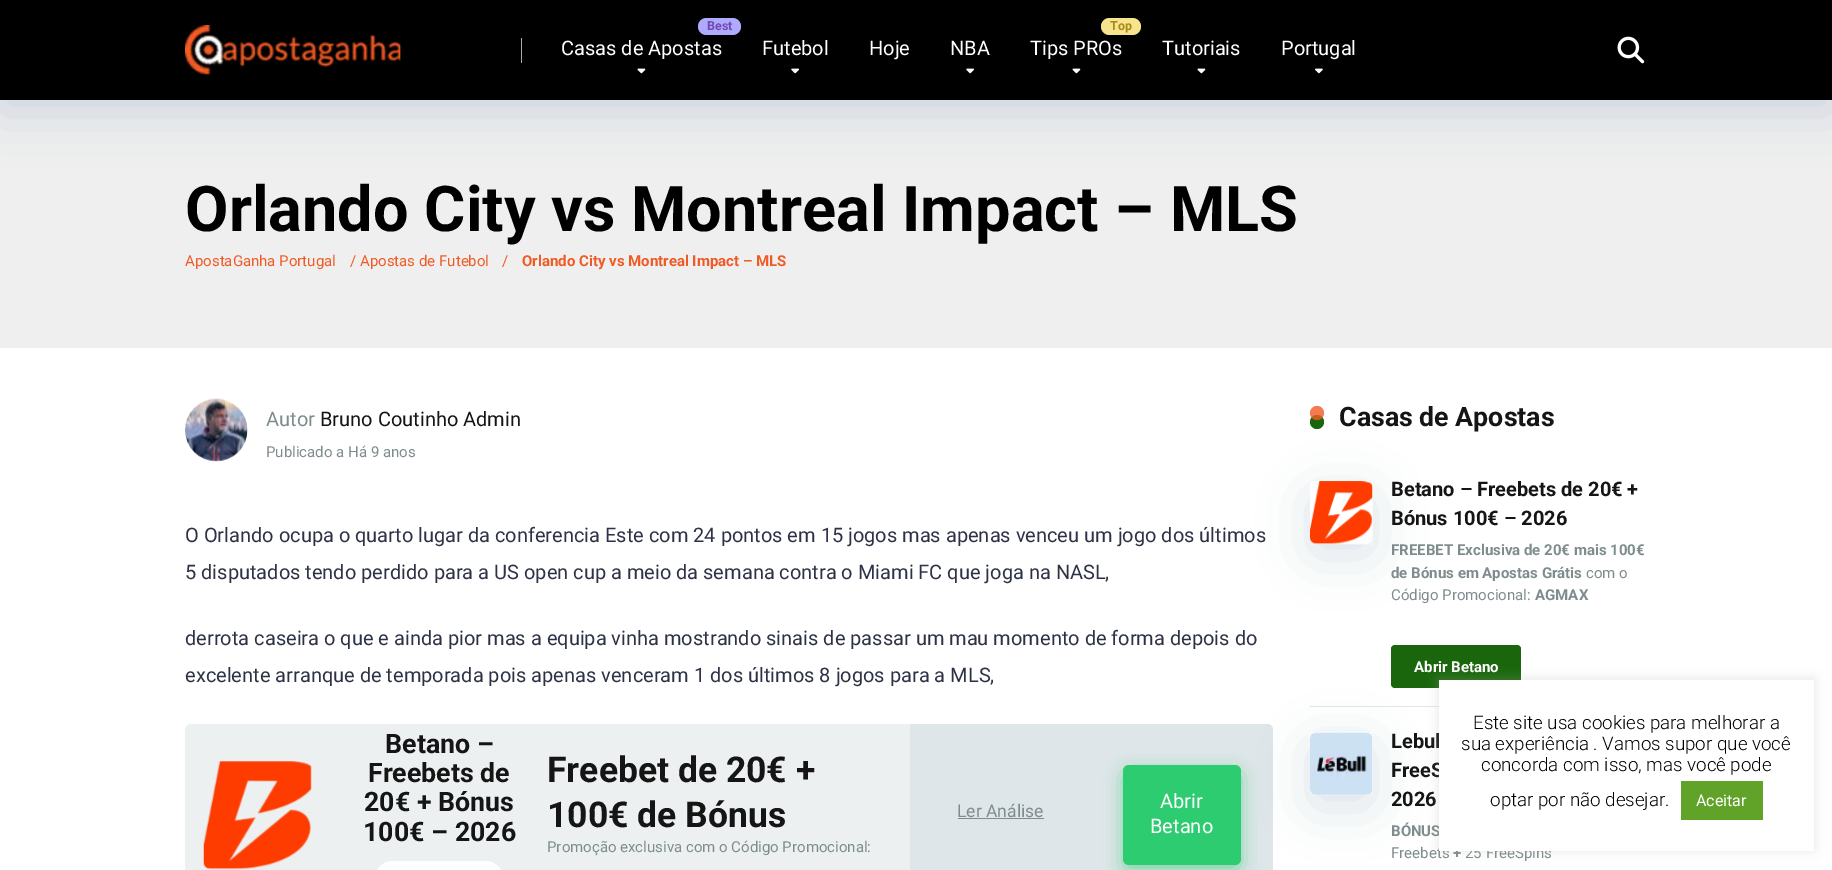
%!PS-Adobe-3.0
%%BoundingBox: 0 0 1832 870
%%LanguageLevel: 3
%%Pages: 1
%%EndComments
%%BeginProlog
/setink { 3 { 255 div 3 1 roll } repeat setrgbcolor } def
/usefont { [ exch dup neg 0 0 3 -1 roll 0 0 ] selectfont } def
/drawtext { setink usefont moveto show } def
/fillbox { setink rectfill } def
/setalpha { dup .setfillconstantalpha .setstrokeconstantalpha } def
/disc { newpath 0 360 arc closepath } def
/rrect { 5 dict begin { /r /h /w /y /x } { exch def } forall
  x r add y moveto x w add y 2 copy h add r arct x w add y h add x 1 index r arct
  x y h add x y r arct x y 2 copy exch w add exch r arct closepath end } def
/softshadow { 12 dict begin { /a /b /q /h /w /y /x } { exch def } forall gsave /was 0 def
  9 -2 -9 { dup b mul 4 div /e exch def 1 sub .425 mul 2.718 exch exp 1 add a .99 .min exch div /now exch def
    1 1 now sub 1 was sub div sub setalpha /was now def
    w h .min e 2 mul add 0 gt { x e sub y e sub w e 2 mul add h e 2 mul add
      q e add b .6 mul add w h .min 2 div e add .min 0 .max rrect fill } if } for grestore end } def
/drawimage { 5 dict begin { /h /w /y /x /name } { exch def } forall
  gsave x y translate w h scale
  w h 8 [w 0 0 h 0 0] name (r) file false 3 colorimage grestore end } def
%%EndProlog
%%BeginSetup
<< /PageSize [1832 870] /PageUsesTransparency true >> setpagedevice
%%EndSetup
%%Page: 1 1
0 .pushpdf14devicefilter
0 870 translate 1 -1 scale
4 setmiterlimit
0 0 1832 870 255 255 255 fillbox
0 100 1832 248 239 239 239 fillbox
109 141 173 setink
0 13 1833 100 0 25 0.25 softshadow
0 0 1832 100 0 0 0 fillbox
(assets/img1.rgb) 185 25 216 50 drawimage
521 38 1 25 169 173 168 fillbox
176 170 255 setink
698 18 43 17 8.5 rrect fill
(Best) 707 30 /Roboto-Bold 12.5 114 72 181 drawtext
(Casas de Apostas) 561 55 /Roboto-Regular 20 255 255 255 drawtext
(assets/img2.rgb) 637 68 9 6 drawimage
(Futebol) 762 55 /Roboto-Regular 20 255 255 255 drawtext
(assets/img3.rgb) 791 68 8 6 drawimage
(Hoje) 869 55 /Roboto-Regular 20 255 255 255 drawtext
(NBA) 950 55 /Roboto-Regular 20 255 255 255 drawtext
(assets/img3.rgb) 966 68 8 6 drawimage
246 229 141 setink
1101 18 40 17 8.5 rrect fill
(Top) 1110 30 /Roboto-Bold 12.5 168 136 23 drawtext
(Tips PROs) 1030 55 /Roboto-Regular 20 255 255 255 drawtext
(assets/img2.rgb) 1072 68 9 6 drawimage
(Tutoriais) 1162 55 /Roboto-Regular 20 255 255 255 drawtext
(assets/img2.rgb) 1197 68 9 6 drawimage
(Portugal) 1281 55 /Roboto-Regular 20 255 255 255 drawtext
(assets/img4.rgb) 1315 68 8 6 drawimage
(assets/img5.rgb) 1617 36 28 28 drawimage
(Orlando City vs Montreal Impact – MLS) 185 231 /Roboto-Bold 63.1 0 0 0 drawtext
(ApostaGanha Portugal) 185 266 /Roboto-Regular 15 240 90 37 drawtext
(/ Apostas de Futebol) 350 266 /Roboto-Regular 15 240 90 37 drawtext
(/) 502 266 /Roboto-Regular 15 240 90 37 drawtext
(Orlando City vs Montreal Impact – MLS) 522 266 /Roboto-Bold 15 240 90 37 drawtext
(assets/img6.rgb) 185 398 63 64 drawimage
(Autor) 266 426 /Roboto-Regular 20 127 140 141 drawtext
(Bruno Coutinho Admin) 320 426 /Roboto-Regular 20 21 21 21 drawtext
(Publicado a Há 9 anos) 266 457 /Roboto-Regular 15 127 140 141 drawtext
(O Orlando ocupa o quarto lugar da conferencia Este com 24 pontos em 15 jogos mas apenas venceu um jogo dos últimos) 185 542 /Roboto-Regular 20 46 50 70 drawtext
(5 disputados tendo perdido para a US open cup a meio da semana contra o Miami FC que joga na NASL,) 185 579 /Roboto-Regular 20 46 50 70 drawtext
(derrota caseira o que e ainda pior mas a equipa vinha mostrando sinais de passar um mau momento de forma depois do) 185 645 /Roboto-Regular 20 46 50 70 drawtext
(excelente arranque de temporada pois apenas venceram 1 dos últimos 8 jogos para a MLS,) 185 682 /Roboto-Regular 20 46 50 70 drawtext
236 240 241 setink
185 724 1088 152 6 rrect fill
(assets/img7.rgb) 203 761 109 109 drawimage
(Betano –) 385 753 /Roboto-Bold 26.75 21 21 21 drawtext
(Freebets de) 368 782 /Roboto-Bold 26.75 21 21 21 drawtext
(20€ + Bónus) 364 811 /Roboto-Bold 26.75 21 21 21 drawtext
(100€ – 2026) 363 841 /Roboto-Bold 26.75 21 21 21 drawtext
255 255 255 setink
375 861 128 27 17.5 rrect fill
(Freebet de 20€ +) 547 782 /Roboto-Bold 35.5 21 21 21 drawtext
(100€ de Bónus) 547 827 /Roboto-Bold 35.5 21 21 21 drawtext
(Promoção exclusiva com o Código Promocional:) 547 852 /Roboto-Regular 15 127 140 141 drawtext
223 230 233 setink
910 724 moveto 1267 724 lineto 1270.5 724 1273 726.5 1273 730 curveto 1273 870 lineto 1273 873.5 1270.5 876 1267 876 curveto 910 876 lineto closepath fill
(Ler Análise) 957 817 /Roboto-Regular 17.5 127 140 141 drawtext
958 818 86 1 127 140 141 fillbox
46 204 113 setink
1123 771 118 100 6 9.5 0.55 softshadow
1123 765 118 100 6 rrect fill
(Abrir) 1160 808 /Roboto-Regular 20 255 255 255 drawtext
(Betano) 1150 833 /Roboto-Regular 20 255 255 255 drawtext
gsave
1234 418 moveto 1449 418 lineto 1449 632 lineto 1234 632 lineto closepath 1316 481 moveto 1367 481 lineto 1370.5 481 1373 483.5 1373 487 curveto 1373 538 lineto 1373 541.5 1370.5 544 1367 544 curveto 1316 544 lineto 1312.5 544 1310 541.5 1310 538 curveto 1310 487 lineto 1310 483.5 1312.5 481 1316 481 curveto closepath eoclip newpath
109 141 173 setink
1310 494 63 62 6 25 0.25 softshadow
grestore
26 102 12 setink
1317 422 7 disc fill
0.8 setalpha
240 90 37 setink
1317 413 7 disc fill
1 setalpha
(Casas de Apostas) 1339 426 /Roboto-Bold 26.75 21 21 21 drawtext
1310 706 129 1 223 230 233 fillbox
(assets/img8.rgb) 1310 481 63 64 drawimage
(Betano – Freebets de 20€ +) 1391 496 /Roboto-Bold 20 21 21 21 drawtext
(Bónus 100€ – 2026) 1391 525 /Roboto-Bold 20 21 21 21 drawtext
(FREEBET Exclusiva de 20€ mais 100€) 1391 555 /Roboto-Bold 15 127 140 141 drawtext
(de Bónus em Apostas Grátis) 1391 578 /Roboto-Bold 15 127 140 141 drawtext
(com o) 1586 578 /Roboto-Regular 15 127 140 141 drawtext
(Código Promocional:) 1391 600 /Roboto-Regular 15 127 140 141 drawtext
(AGMAX) 1535 600 /Roboto-Bold 15 127 140 141 drawtext
26 102 12 setink
1391 645 130 43 4 rrect fill
(Abrir Betano) 1414 672 /Roboto-Bold 15 255 255 255 drawtext
109 141 173 setink
1310 745 63 63 6 25 0.25 softshadow
(assets/img9.rgb) 1310 732 63 63 drawimage
(Lebul) 1391 748 /Roboto-Bold 20 21 21 21 drawtext
(FreeS) 1391 777 /Roboto-Bold 20 21 21 21 drawtext
(2026) 1391 806 /Roboto-Bold 20 21 21 21 drawtext
(BÓNUS) 1391 836 /Roboto-Bold 15 127 140 141 drawtext
(Freebets) 1391 858 /Roboto-Regular 15 127 140 141 drawtext
(+) 1453 858 /Roboto-Bold 15 127 140 141 drawtext
(25 FreeSpins) 1465 858 /Roboto-Regular 15 127 140 141 drawtext
172 171 171 setink
1439 679 375 171 0 6 0.3 softshadow
1439 680 375 171 255 255 255 fillbox
(Este site usa cookies para melhorar a) 1473 729 /Roboto-Light 18.75 0 0 0 drawtext
(sua experiência . Vamos supor que você) 1461 750 /Roboto-Light 18.75 0 0 0 drawtext
(concorda com isso, mas você pode) 1481 771 /Roboto-Light 18.75 0 0 0 drawtext
(optar por não desejar.) 1490 806 /Roboto-Light 18.75 0 0 0 drawtext
1681 781 82 39 97 162 41 fillbox
(Aceitar) 1696 806 /Roboto-Regular 16 255 255 255 drawtext
.poppdf14devicefilter showpage
%%EOF
